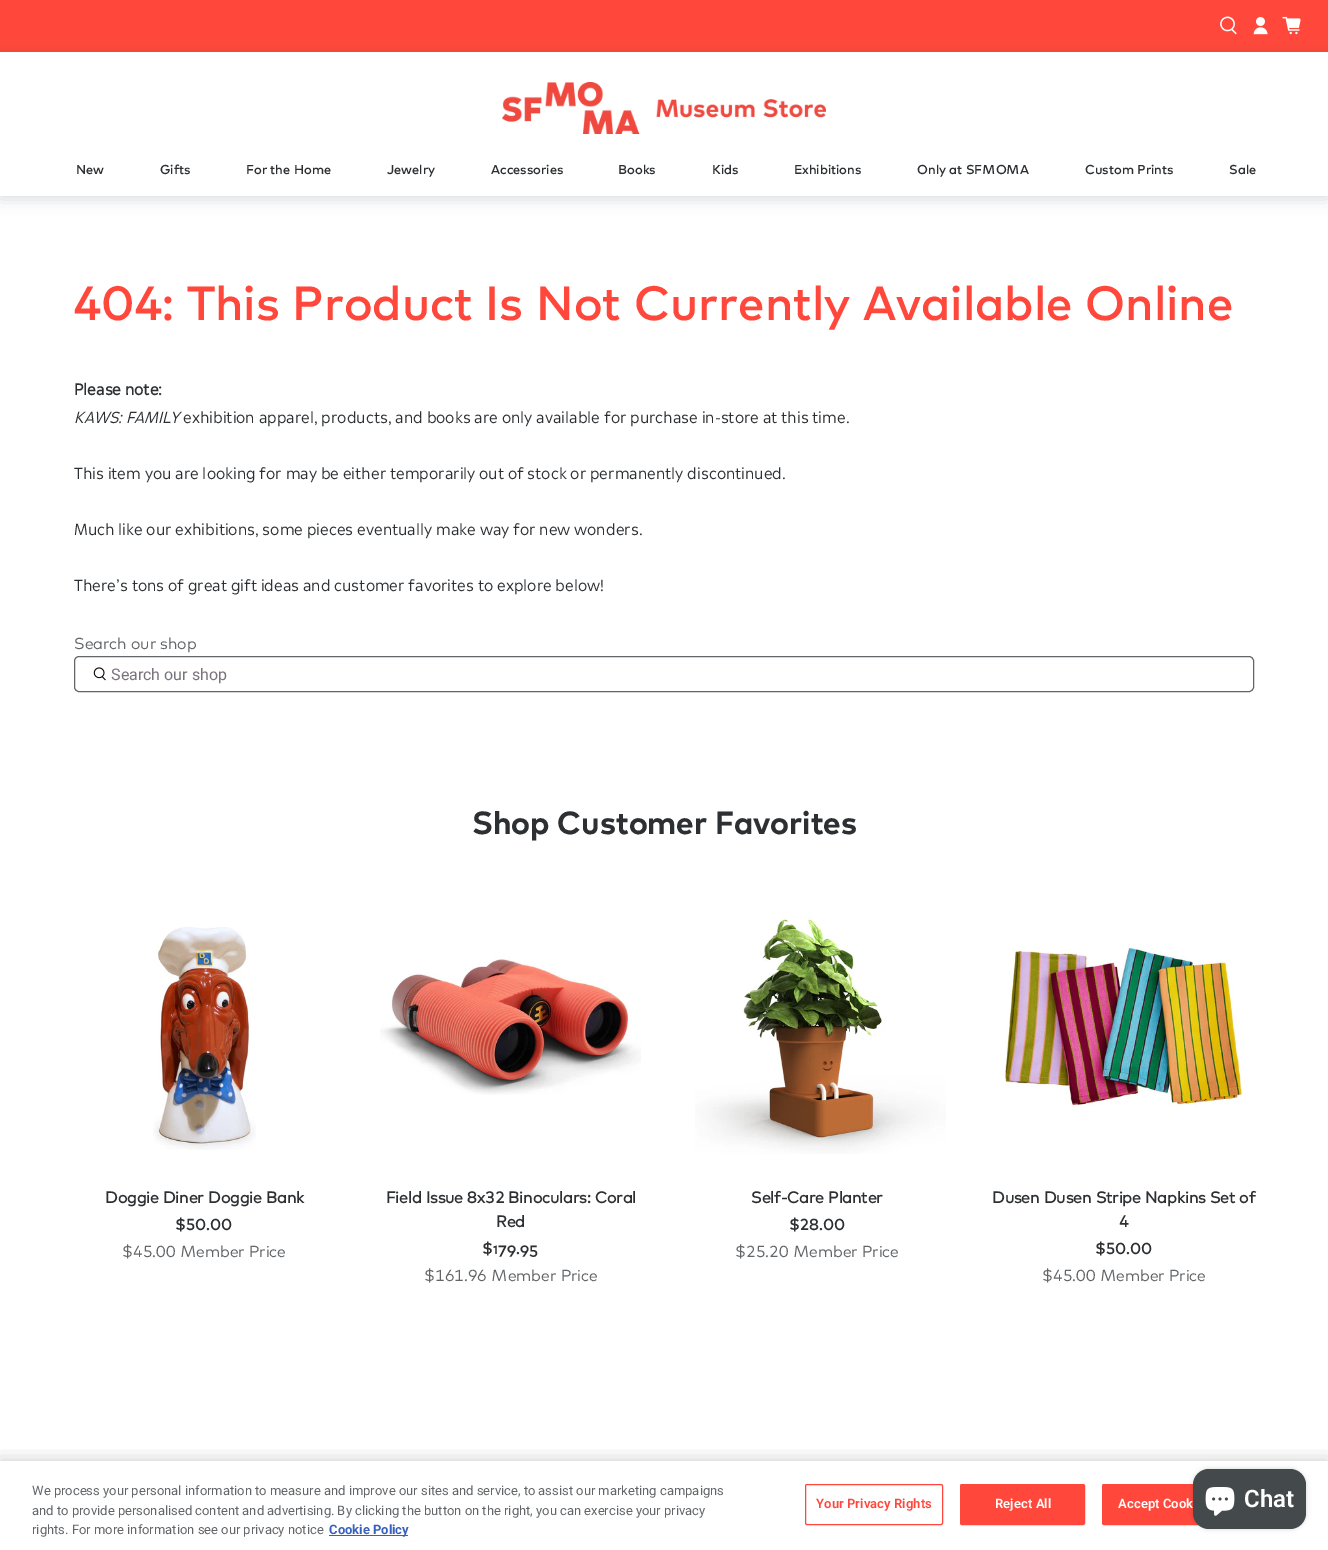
%!PS-Adobe-3.0
%%BoundingBox: 0 0 1328 1550
%%LanguageLevel: 3
%%Pages: 1
%%EndComments
%%BeginProlog
/setink { 3 { 255 div 3 1 roll } repeat setrgbcolor } def
/usefont { [ exch dup neg 0 0 3 -1 roll 0 0 ] selectfont } def
/drawtext { setink usefont moveto show } def
/fillbox { setink rectfill } def
/setalpha { dup .setfillconstantalpha .setstrokeconstantalpha } def
/rrect { 5 dict begin { /r /h /w /y /x } { exch def } forall
  x r add y moveto x w add y 2 copy h add r arct x w add y h add x 1 index r arct
  x y h add x y r arct x y 2 copy exch w add exch r arct closepath end } def
/softshadow { 12 dict begin { /a /b /q /h /w /y /x } { exch def } forall gsave /was 0 def
  9 -2 -9 { dup b mul 4 div /e exch def 1 sub .425 mul 2.718 exch exp 1 add a .99 .min exch div /now exch def
    1 1 now sub 1 was sub div sub setalpha /was now def
    w h .min e 2 mul add 0 gt { x e sub y e sub w e 2 mul add h e 2 mul add
      q e add b .6 mul add w h .min 2 div e add .min 0 .max rrect fill } if } for grestore end } def
/drawimage { 5 dict begin { /h /w /y /x /name } { exch def } forall
  gsave x y translate w h scale
  w h 8 [w 0 0 h 0 0] name (r) file false 3 colorimage grestore end } def
%%EndProlog
%%BeginSetup
<< /PageSize [1328 1550] /PageUsesTransparency true >> setpagedevice
%%EndSetup
%%Page: 1 1
0 .pushpdf14devicefilter
0 1550 translate 1 -1 scale
4 setmiterlimit
0 0 1328 1550 255 255 255 fillbox
0 0 1328 52 255 72 59 fillbox
(assets/img1.rgb) 1220 16 17 19 drawimage
(assets/img2.rgb) 1253 17 15 18 drawimage
gsave
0 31 moveto 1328 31 lineto 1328 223 lineto 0 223 lineto closepath 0 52 moveto 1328 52 lineto 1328 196 lineto 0 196 lineto closepath eoclip newpath
68 73 76 setink
0 55 1328 144 0 7.5 0.2 softshadow
grestore
(assets/img3.rgb) 1282 16 19 19 drawimage
(assets/img4.rgb) 502 82 324 52 drawimage
(New) 76 174 /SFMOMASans-Medium 13 45 48 51 drawtext
(Gifts) 160 174 /SFMOMASans-Medium 13 45 48 51 drawtext
(For the Home) 246 174 /SFMOMASans-Medium 13 45 48 51 drawtext
(Jewelry) 387 174 /SFMOMASans-Medium 13 45 48 51 drawtext
(Accessories) 491 174 /SFMOMASans-Medium 13 45 48 51 drawtext
(Books) 618 174 /SFMOMASans-Medium 13 45 48 51 drawtext
(Kids) 712 174 /SFMOMASans-Medium 13 45 48 51 drawtext
(Exhibitions) 794 174 /SFMOMASans-Medium 13 45 48 51 drawtext
(Only at SFMOMA) 917 174 /SFMOMASans-Medium 13 45 48 51 drawtext
(Custom Prints) 1085 174 /SFMOMASans-Medium 13 45 48 51 drawtext
(Sale) 1229 174 /SFMOMASans-Medium 13 45 48 51 drawtext
(404: This Product Is Not Currently Available Online) 74 320 /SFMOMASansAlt-Medium 48 255 72 59 drawtext
(Please note:) 74 395 /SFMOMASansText-Bold 16 45 48 51 drawtext
(KAWS: FAMILY) 74 423 /SFMOMASansText-Italic 16 45 48 51 drawtext
(exhibition apparel, products, and books are only available for purchase in-store at this time.) 183 423 /SFMOMASansText-Regular 16 45 48 51 drawtext
(This item you are looking for may be either temporarily out of stock or permanently discontinued.) 74 479 /SFMOMASansText-Regular 16 45 48 51 drawtext
(Much like our exhibitions, some pieces eventually make way for new wonders.) 74 535 /SFMOMASansText-Regular 16 45 48 51 drawtext
(There’s tons of great gift ideas and customer favorites to explore below!) 74 591 /SFMOMASansText-Regular 16 45 48 51 drawtext
(Search our shop) 74 649 /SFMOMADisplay-Regular 16 99 102 104 drawtext
74.5 656.5 1179 35 4.5 rrect stroke
(assets/img5.rgb) 93 667 13 14 drawimage
(Search our shop) 111 680 /Roboto-Regular 16 121 116 123 drawtext
(Shop Customer Favorites) 472 834 /SFMOMASans-Bold 32 45 48 51 drawtext
(assets/img6.rgb) 153 927 103 223 drawimage
(Doggie Diner Doggie Bank) 105 1203 /SFMOMADisplay-Bold 16 45 48 51 drawtext
($50.00) 175 1230 /SFMOMASansAlt-Medium 16 45 48 51 drawtext
($45.00 Member Price) 122 1257 /SFMOMADisplay-Regular 16 99 102 104 drawtext
(assets/img7.rgb) 380 956 261 139 drawimage
(Field Issue 8x32 Binoculars: Coral) 386 1203 /SFMOMADisplay-Bold 16 45 48 51 drawtext
(Red) 496 1227 /SFMOMADisplay-Bold 16 45 48 51 drawtext
($179.95) 482 1254 /SFMOMASans-Medium 16 45 48 51 drawtext
($161.96 Member Price) 424 1281 /SFMOMADisplay-Regular 16 99 102 104 drawtext
(assets/img8.rgb) 695 915 251 239 drawimage
(Self-Care Planter) 751 1203 /SFMOMADisplay-Bold 16 45 48 51 drawtext
($28.00) 789 1230 /SFMOMASansAlt-Medium 16 45 48 51 drawtext
($25.20 Member Price) 735 1257 /SFMOMADisplay-Regular 16 99 102 104 drawtext
(assets/img9.rgb) 1005 947 238 160 drawimage
(Dusen Dusen Stripe Napkins Set of) 992 1203 /SFMOMADisplay-Bold 16 45 48 51 drawtext
(4) 1119 1227 /SFMOMADisplay-Bold 16 45 48 51 drawtext
($50.00) 1095 1254 /SFMOMASansAlt-Medium 16 45 48 51 drawtext
($45.00 Member Price) 1042 1281 /SFMOMADisplay-Regular 16 99 102 104 drawtext
gsave
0 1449 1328 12 rectclip
0 0 0 setink
0 1461 1328 89 0 9 0.2 softshadow
grestore
(We process your personal information to measure and improve our sites and service, to assist our marketing campaigns) 32 1495 /Roboto-Regular 13 99 102 104 drawtext
(and to provide personalised content and advertising. By clicking the button on the right, you can exercise your privacy) 32 1515 /Roboto-Regular 13 99 102 104 drawtext
(rights. For more information see our privacy notice) 32 1534 /Roboto-Regular 13 99 102 104 drawtext
329 1535 79 1 56 96 190 fillbox
(Cookie Policy) 329 1534 /Roboto-Bold 13 56 96 190 drawtext
255 72 59 setink
805.5 1484.5 137 40 1.5 rrect stroke
/Roboto-SemiBold 13 usefont
816 1508 moveto 0.1 0 (Your Privacy Rights) ashow
960.5 1484.5 124 40 1.5 rrect gsave fill grestore
stroke
255 255 255 setink
995 1508 moveto 0.1 0 (Reject All) ashow
255 72 59 setink
1102.5 1484.5 124 40 1.5 rrect gsave fill grestore
stroke
255 255 255 setink
1118 1508 moveto 0.1 0 (Accept Cook) ashow
0 0 0 setink
1193 1469 113 60 16 2.5 0.15 softshadow
68 73 76 setink
1193 1469 113 60 16 rrect fill
(assets/img10.rgb) 1205 1487 30 29 drawimage
(Chat) 1244 1507 /Roboto-SemiBold 24 255 255 255 drawtext
.poppdf14devicefilter showpage
%%EOF
